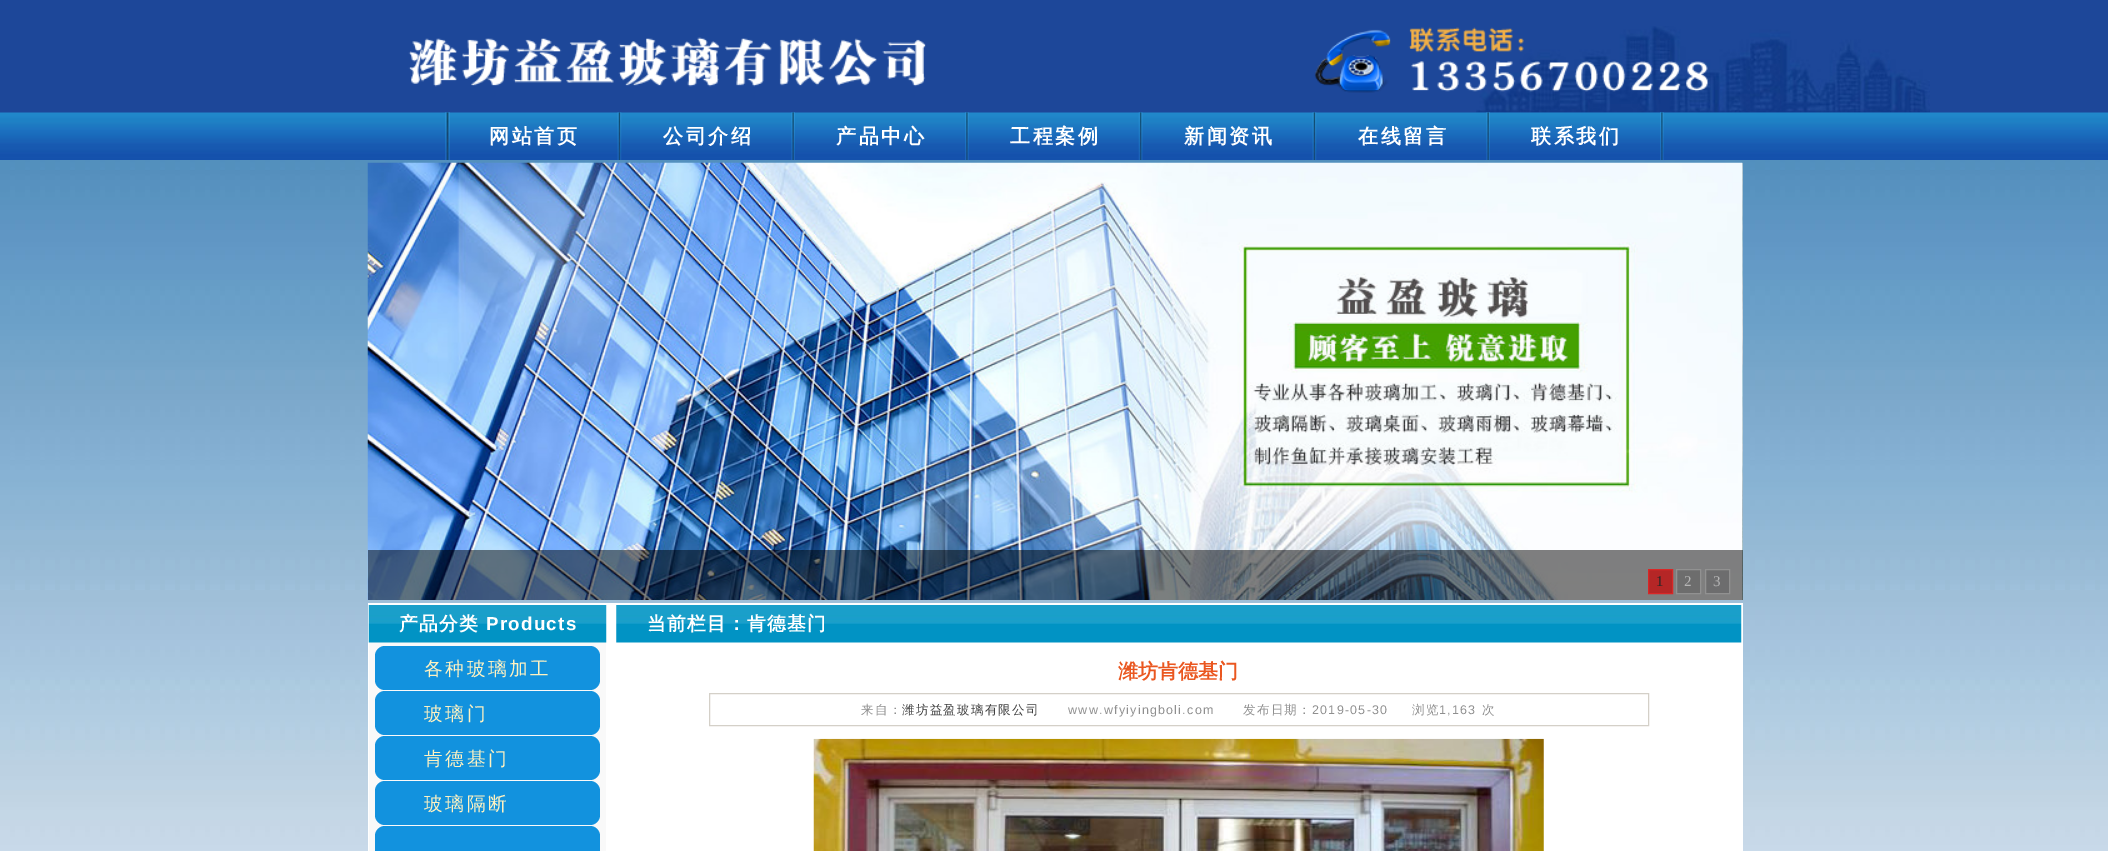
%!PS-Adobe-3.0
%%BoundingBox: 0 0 2108 851
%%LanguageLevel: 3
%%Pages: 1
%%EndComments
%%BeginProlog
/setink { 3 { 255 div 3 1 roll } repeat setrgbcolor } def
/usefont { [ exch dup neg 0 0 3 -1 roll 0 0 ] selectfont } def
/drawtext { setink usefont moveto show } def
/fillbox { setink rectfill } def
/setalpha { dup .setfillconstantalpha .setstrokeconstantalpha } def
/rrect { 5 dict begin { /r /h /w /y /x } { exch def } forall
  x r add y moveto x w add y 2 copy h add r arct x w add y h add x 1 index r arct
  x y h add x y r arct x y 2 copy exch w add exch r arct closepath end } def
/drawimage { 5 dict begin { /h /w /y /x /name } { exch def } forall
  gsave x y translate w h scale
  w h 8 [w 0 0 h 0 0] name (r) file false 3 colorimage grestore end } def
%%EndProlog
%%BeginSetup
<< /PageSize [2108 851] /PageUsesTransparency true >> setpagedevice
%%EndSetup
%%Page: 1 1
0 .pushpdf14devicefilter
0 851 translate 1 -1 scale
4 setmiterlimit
0 0 2108 851 255 255 255 fillbox
(assets/img1.rgb) 0 160 2108 691 drawimage
0 0 2108 113 29 71 153 fillbox
(assets/img2.rgb) 1476 26 454 87 drawimage
(assets/img3.rgb) 408 37 518 50 drawimage
(assets/img4.rgb) 1314 27 394 66 drawimage
(assets/img5.rgb) 0 112 2108 48 drawimage
(assets/img6.rgb) 445 112 5 48 drawimage
(assets/img7.rgb) 617 112 5 48 drawimage
/WenQuanYiZenHei-Bold 20 usefont
255 255 255 setink
489 143 moveto 2.5 0 (网站首页) ashow
(assets/img8.rgb) 791 112 4 48 drawimage
663 143 moveto 2.5 0 (公司介绍) ashow
(assets/img9.rgb) 965 112 4 48 drawimage
836 143 moveto 2.5 0 (产品中心) ashow
(assets/img10.rgb) 1138 112 5 48 drawimage
1010 143 moveto 2.5 0 (工程案例) ashow
(assets/img7.rgb) 1312 112 5 48 drawimage
1184 143 moveto 2.5 0 (新闻资讯) ashow
(assets/img11.rgb) 1486 112 4 48 drawimage
1358 143 moveto 2.5 0 (在线留言) ashow
(assets/img12.rgb) 1660 112 4 48 drawimage
1531 143 moveto 2.5 0 (联系我们) ashow
1742 163 1 437 204 204 204 fillbox
(assets/img13.rgb) 367 162 1376 438 drawimage
(assets/img14.rgb) 1742 163 1 437 drawimage
0.5 setalpha
368 550 1375 50 0 0 0 fillbox
1 setalpha
181 38 38 setink
1648.5 569.5 moveto 1672.5 569.5 lineto 1672.5 593.5 lineto 1648.5 593.5 lineto closepath gsave fill grestore
217 38 38 setink
stroke
(1) 1656 586 /LiberationSerif-Regular 15 38 38 38 drawtext
109 109 109 setink
1676.5 569.5 moveto 1700.5 569.5 lineto 1700.5 593.5 lineto 1676.5 593.5 lineto closepath gsave fill grestore
145 145 145 setink
stroke
(2) 1684 586 /LiberationSerif-Regular 15 181 181 181 drawtext
109 109 110 setink
1705.5 569.5 moveto 1729.5 569.5 lineto 1729.5 593.5 lineto 1705.5 593.5 lineto closepath gsave fill grestore
145 145 145 setink
stroke
(3) 1713 586 /LiberationSerif-Regular 15 181 181 181 drawtext
368 603 1375 248 255 255 255 fillbox
369 642 237 209 249 249 249 fillbox
(assets/img15.rgb) 368 605 239 38 drawimage
/WenQuanYiZenHei-Bold 18.75 usefont
255 255 255 setink
399 630 moveto 1.25 0 (产品分类) ashow
/LiberationSans-Bold 18.75 usefont
486 630 moveto 1.25 0 (Products) ashow
18 146 222 setink
375 646 225 44 10 rrect fill
/WenQuanYiZenHei-Medium 18.75 usefont
255 242 193 setink
424 675 moveto 2.5 0 (各种玻璃加工) ashow
18 146 222 setink
375 691 225 44 10 rrect fill
255 242 193 setink
424 720 moveto 2.5 0 (玻璃门) ashow
18 146 222 setink
375 736 225 44 10 rrect fill
255 242 193 setink
424 765 moveto 2.5 0 (肯德基门) ashow
18 146 222 setink
375 781 225 44 10 rrect fill
255 242 193 setink
424 810 moveto 2.5 0 (玻璃隔断) ashow
18 146 222 setink
375 826 225 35 10 rrect fill
(assets/img16.rgb) 616 605 1126 38 drawimage
/WenQuanYiZenHei-Bold 18.75 usefont
255 255 255 setink
647 630 moveto 1.25 0 (当前栏目：肯德基门) ashow
(潍坊肯德基门) 1118 678 /WenQuanYiZenHei-Bold 20 234 87 32 drawtext
212 208 200 setink
709.5 693.5 939 32 rectstroke
/WenQuanYiZenHei-Medium 12.5 usefont
143 143 143 setink
861 714 moveto 1.25 0 (来自：) ashow
64 64 64 setink
902 714 moveto 1.25 0 (潍坊益盈玻璃有限公司) ashow
/LiberationSans-Regular 12.5 usefont
143 143 143 setink
1068 714 moveto 1.25 0 (www.wfyiyingboli.com) ashow
/WenQuanYiZenHei-Medium 12.5 usefont
1243 714 moveto 1.25 0 (发布日期：) ashow
/LiberationSans-Regular 12.5 usefont
1312 714 moveto 1.25 0 (2019-05-30) ashow
/WenQuanYiZenHei-Medium 12.5 usefont
1412 714 moveto 1.25 0 (浏览) ashow
/LiberationSans-Regular 12.5 usefont
1439 714 moveto 1.25 0 (1,163) ashow
/WenQuanYiZenHei-Medium 12.5 usefont
1482 714 moveto 1.25 0 (次) ashow
(assets/img17.rgb) 813 738 731 113 drawimage
.poppdf14devicefilter showpage
%%EOF
